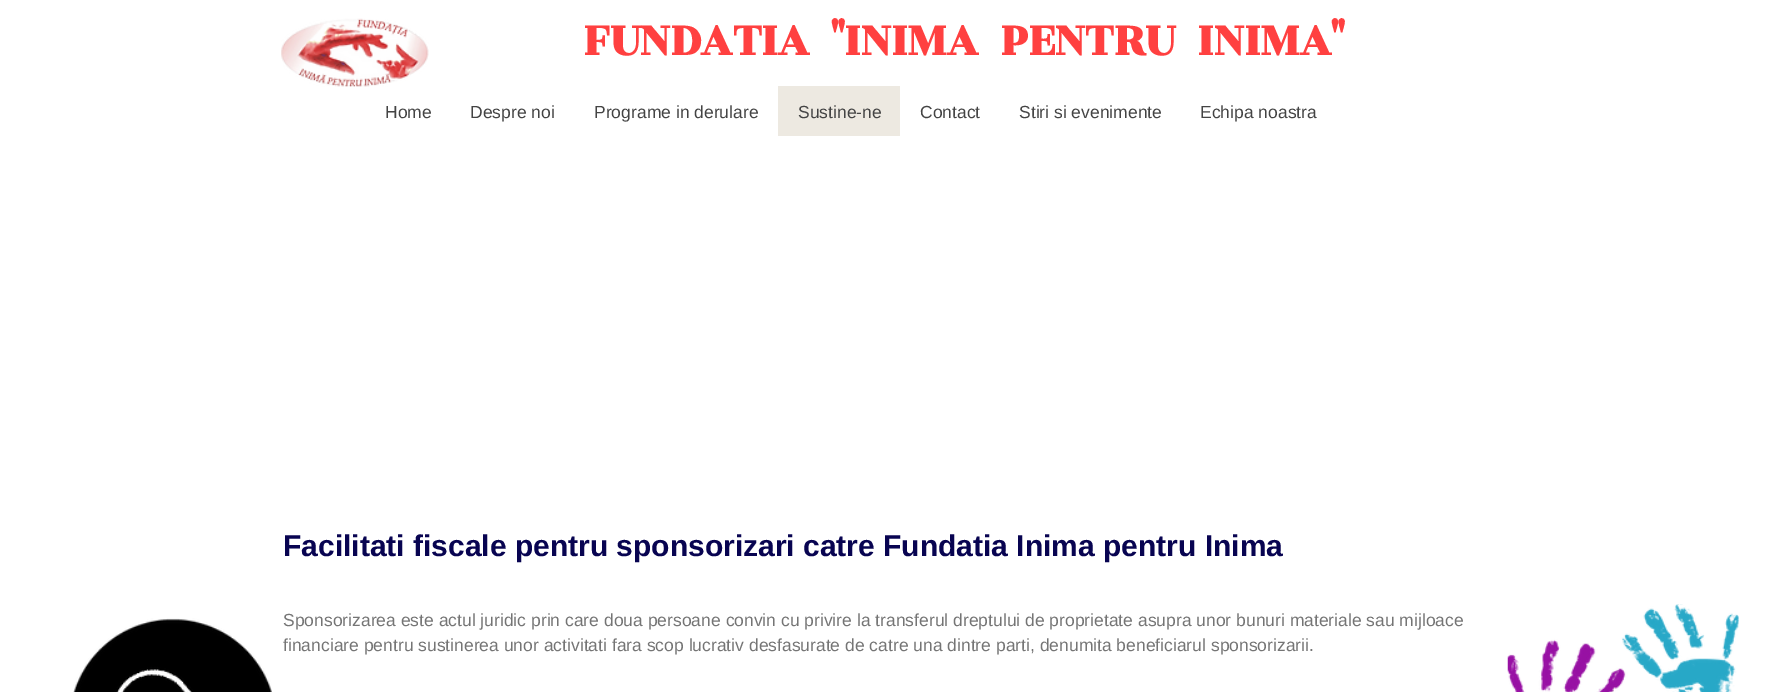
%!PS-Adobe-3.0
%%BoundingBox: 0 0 1789 692
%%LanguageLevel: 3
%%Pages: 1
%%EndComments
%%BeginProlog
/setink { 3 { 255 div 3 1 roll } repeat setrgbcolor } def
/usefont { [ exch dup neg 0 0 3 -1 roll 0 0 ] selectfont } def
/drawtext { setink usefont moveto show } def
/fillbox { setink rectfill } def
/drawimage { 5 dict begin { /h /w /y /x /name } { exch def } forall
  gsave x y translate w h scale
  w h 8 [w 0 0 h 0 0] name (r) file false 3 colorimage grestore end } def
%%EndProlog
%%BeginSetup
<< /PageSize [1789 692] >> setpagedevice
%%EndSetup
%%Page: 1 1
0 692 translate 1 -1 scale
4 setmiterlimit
0 0 1789 692 255 255 255 fillbox
(assets/img1.rgb) 281 18 148 69 drawimage
(FUNDATIA  "INIMA  PENTRU  INIMA") 583 55 /RozhaOne-Bold 50 255 64 64 drawtext
(Home) 385 118 /LiberationSans-Regular 17.5 68 68 68 drawtext
(Despre noi) 470 118 /LiberationSans-Regular 17.5 68 68 68 drawtext
(Programe in derulare) 594 118 /LiberationSans-Regular 17.5 68 68 68 drawtext
778 86 122 50 237 233 225 fillbox
(Sustine-ne) 798 118 /LiberationSans-Regular 17.5 68 68 68 drawtext
(Contact) 920 118 /LiberationSans-Regular 17.5 68 68 68 drawtext
(Stiri si evenimente) 1019 118 /LiberationSans-Regular 17.5 68 68 68 drawtext
(Echipa noastra) 1200 118 /LiberationSans-Regular 17.5 68 68 68 drawtext
(assets/img2.rgb) 73 618 199 74 drawimage
(Facilitati fiscale pentru sponsorizari catre Fundatia Inima pentru Inima) 283 556 /LiberationSans-Bold 30 8 4 81 drawtext
(Sponsorizarea este actul juridic prin care doua persoane convin cu privire la transferul dreptului de proprietate asupra unor bunuri materiale sau mijloace) 283 626 /LiberationSans-Regular 17.5 117 117 117 drawtext
(financiare pentru sustinerea unor activitati fara scop lucrativ desfasurate de catre una dintre parti, denumita beneficiarul sponsorizarii.) 283 651 /LiberationSans-Regular 17.5 117 117 117 drawtext
(assets/img3.rgb) 1507 604 232 88 drawimage
showpage
%%EOF
